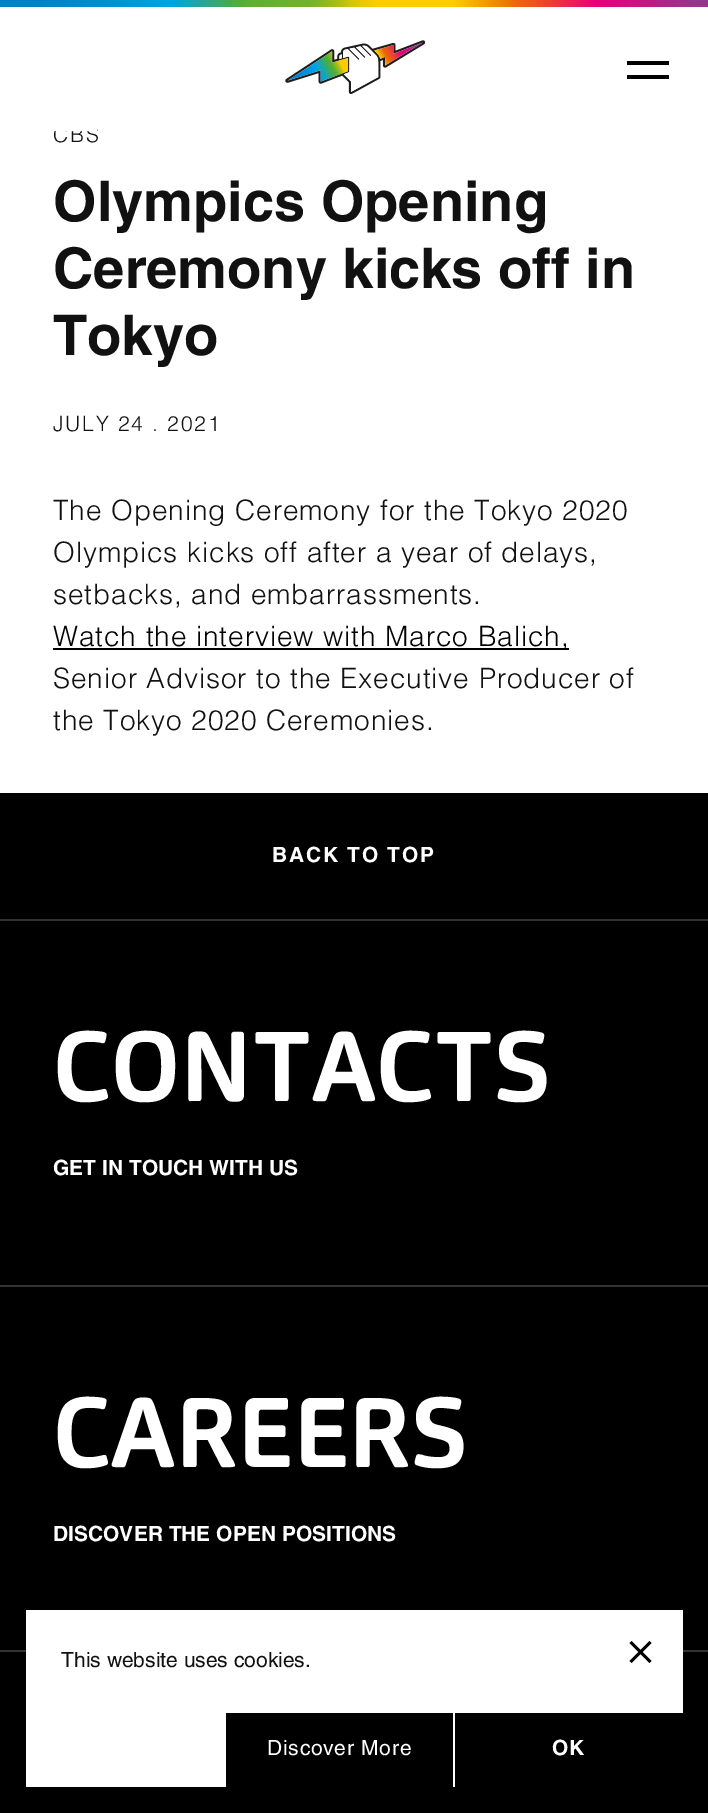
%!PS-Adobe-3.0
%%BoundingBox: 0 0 708 1813
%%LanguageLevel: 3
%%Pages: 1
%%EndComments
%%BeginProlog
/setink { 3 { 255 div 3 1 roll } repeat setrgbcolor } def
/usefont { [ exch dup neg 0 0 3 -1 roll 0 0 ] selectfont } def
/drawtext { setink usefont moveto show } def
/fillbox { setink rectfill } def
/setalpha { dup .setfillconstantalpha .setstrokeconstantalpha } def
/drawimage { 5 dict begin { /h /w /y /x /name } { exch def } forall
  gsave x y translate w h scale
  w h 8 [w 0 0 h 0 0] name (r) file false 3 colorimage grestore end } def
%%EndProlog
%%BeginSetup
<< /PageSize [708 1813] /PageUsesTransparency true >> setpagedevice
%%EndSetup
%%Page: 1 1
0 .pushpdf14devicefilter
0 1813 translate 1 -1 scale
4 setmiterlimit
0 0 708 1813 255 255 255 fillbox
gsave 0 0 moveto 708 0 lineto 708 7 lineto 0 7 lineto closepath clip newpath
<< /ShadingType 2 /ColorSpace /DeviceRGB /Coords [0 3.5 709 3.5] /Extend [true true] /Function << /FunctionType 3 /Domain [0 1] /Functions [<< /FunctionType 2 /Domain [0 1] /C0 [0 0.502 0.788] /C1 [0 0.518 0.8] /N 1 >> << /FunctionType 2 /Domain [0 1] /C0 [0 0.518 0.8] /C1 [0 0.565 0.839] /N 1 >> << /FunctionType 2 /Domain [0 1] /C0 [0 0.565 0.839] /C1 [0 0.639 0.898] /N 1 >> << /FunctionType 2 /Domain [0 1] /C0 [0 0.639 0.898] /C1 [0.024 0.643 0.847] /N 1 >> << /FunctionType 2 /Domain [0 1] /C0 [0.024 0.643 0.847] /C1 [0.086 0.651 0.71] /N 1 >> << /FunctionType 2 /Domain [0 1] /C0 [0.086 0.651 0.71] /C1 [0.188 0.663 0.486] /N 1 >> << /FunctionType 2 /Domain [0 1] /C0 [0.188 0.663 0.486] /C1 [0.322 0.682 0.196] /N 1 >> << /FunctionType 2 /Domain [0 1] /C0 [0.322 0.682 0.196] /C1 [0.361 0.69 0.184] /N 1 >> << /FunctionType 2 /Domain [0 1] /C0 [0.361 0.69 0.184] /C1 [0.463 0.706 0.157] /N 1 >> << /FunctionType 2 /Domain [0 1] /C0 [0.463 0.706 0.157] /C1 [0.627 0.737 0.106] /N 1 >> << /FunctionType 2 /Domain [0 1] /C0 [0.627 0.737 0.106] /C1 [0.859 0.776 0.043] /N 1 >> << /FunctionType 2 /Domain [0 1] /C0 [0.859 0.776 0.043] /C1 [1 0.8 0] /N 1 >> << /FunctionType 2 /Domain [0 1] /C0 [1 0.8 0] /C1 [1 0.8 0] /N 1 >> << /FunctionType 2 /Domain [0 1] /C0 [1 0.8 0] /C1 [0.925 0.4 0.031] /N 1 >> << /FunctionType 2 /Domain [0 1] /C0 [0.925 0.4 0.031] /C1 [0.922 0.31 0.133] /N 1 >> << /FunctionType 2 /Domain [0 1] /C0 [0.922 0.31 0.133] /C1 [0.906 0.082 0.396] /N 1 >> << /FunctionType 2 /Domain [0 1] /C0 [0.906 0.082 0.396] /C1 [0.902 0 0.494] /N 1 >> << /FunctionType 2 /Domain [0 1] /C0 [0.902 0 0.494] /C1 [0.71 0.129 0.525] /N 1 >> << /FunctionType 2 /Domain [0 1] /C0 [0.71 0.129 0.525] /C1 [0.588 0.212 0.545] /N 1 >> << /FunctionType 2 /Domain [0 1] /C0 [0.588 0.212 0.545] /C1 [0.588 0.212 0.545] /N 1 >>] /Bounds [0.08 0.16 0.24 0.25 0.27 0.3 0.34 0.35 0.44 0.47 0.5 0.53 0.64 0.73 0.76 0.82 0.84 0.93 0.98] /Encode [0 1 0 1 0 1 0 1 0 1 0 1 0 1 0 1 0 1 0 1 0 1 0 1 0 1 0 1 0 1 0 1 0 1 0 1 0 1 0 1] >> >> shfill grestore
/Helvetica-Light 21 usefont
17 17 17 setink
53 142 moveto 1.75 0 (CBS) ashow
54 126 43 5 255 255 255 fillbox
0.2 setalpha
53 131 36 1 255 255 255 fillbox
1 setalpha
(assets/img1.rgb) 285 40 140 55 drawimage
627 61 42 4 0 0 0 fillbox
627 75 42 4 0 0 0 fillbox
(Olympics Opening) 53 221 /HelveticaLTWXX-Bold 56 17 17 17 drawtext
(Ceremony kicks off in) 53 288 /HelveticaLTWXX-Bold 56 17 17 17 drawtext
(Tokyo) 53 355 /HelveticaLTWXX-Bold 56 17 17 17 drawtext
/Helvetica-Light 21 usefont
53 431 moveto 1.75 0 (JULY 24 . 2021) ashow
/Helvetica-Light 28 usefont
53 520 moveto 0.9 0 (The Opening Ceremony for the Tokyo 2020) ashow
53 562 moveto 0.9 0 (Olympics kicks off after a year of delays,) ashow
53 604 moveto 0.9 0 (setbacks, and embarrassments.) ashow
53 648 516 2 0 0 0 fillbox
53 646 moveto 0.9 0 (Watch the interview with Marco Balich,) ashow
17 17 17 setink
53 688 moveto 0.9 0 (Senior Advisor to the Executive Producer of) ashow
53 730 moveto 0.9 0 (the Tokyo 2020 Ceremonies.) ashow
0 793 708 1020 0 0 0 fillbox
0 919 708 2 51 51 51 fillbox
/HelveticaLTWXX-Bold 21 usefont
255 255 255 setink
272 862 moveto 1.75 0 (BACK TO TOP) ashow
0 1285 708 2 51 51 51 fillbox
(CONTACTS) 53 1101 /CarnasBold-Bold 98 255 255 255 drawtext
(GET IN TOUCH WITH US) 53 1175 /HelveticaLTWXX-Bold 21 255 255 255 drawtext
0 1650 708 2 51 51 51 fillbox
(CAREERS) 53 1467 /CarnasBold-Bold 98 255 255 255 drawtext
(DISCOVER THE OPEN POSITIONS) 53 1541 /HelveticaLTWXX-Bold 21 255 255 255 drawtext
26 1610 657 177 255 255 255 fillbox
(This website uses cookies.) 61 1667 /HelveticaLTWXX-Regular 21 17 17 17 drawtext
(assets/img2.rgb) 629 1641 23 22 drawimage
226 1713 227 74 0 0 0 fillbox
255 255 255 setink
267 1755 moveto 0.75 0 (Discover More) ashow
455 1713 228 74 0 0 0 fillbox
/HelveticaLTWXX-Bold 21 usefont
255 255 255 setink
552 1755 moveto 0.75 0 (OK) ashow
.poppdf14devicefilter showpage
%%EOF
